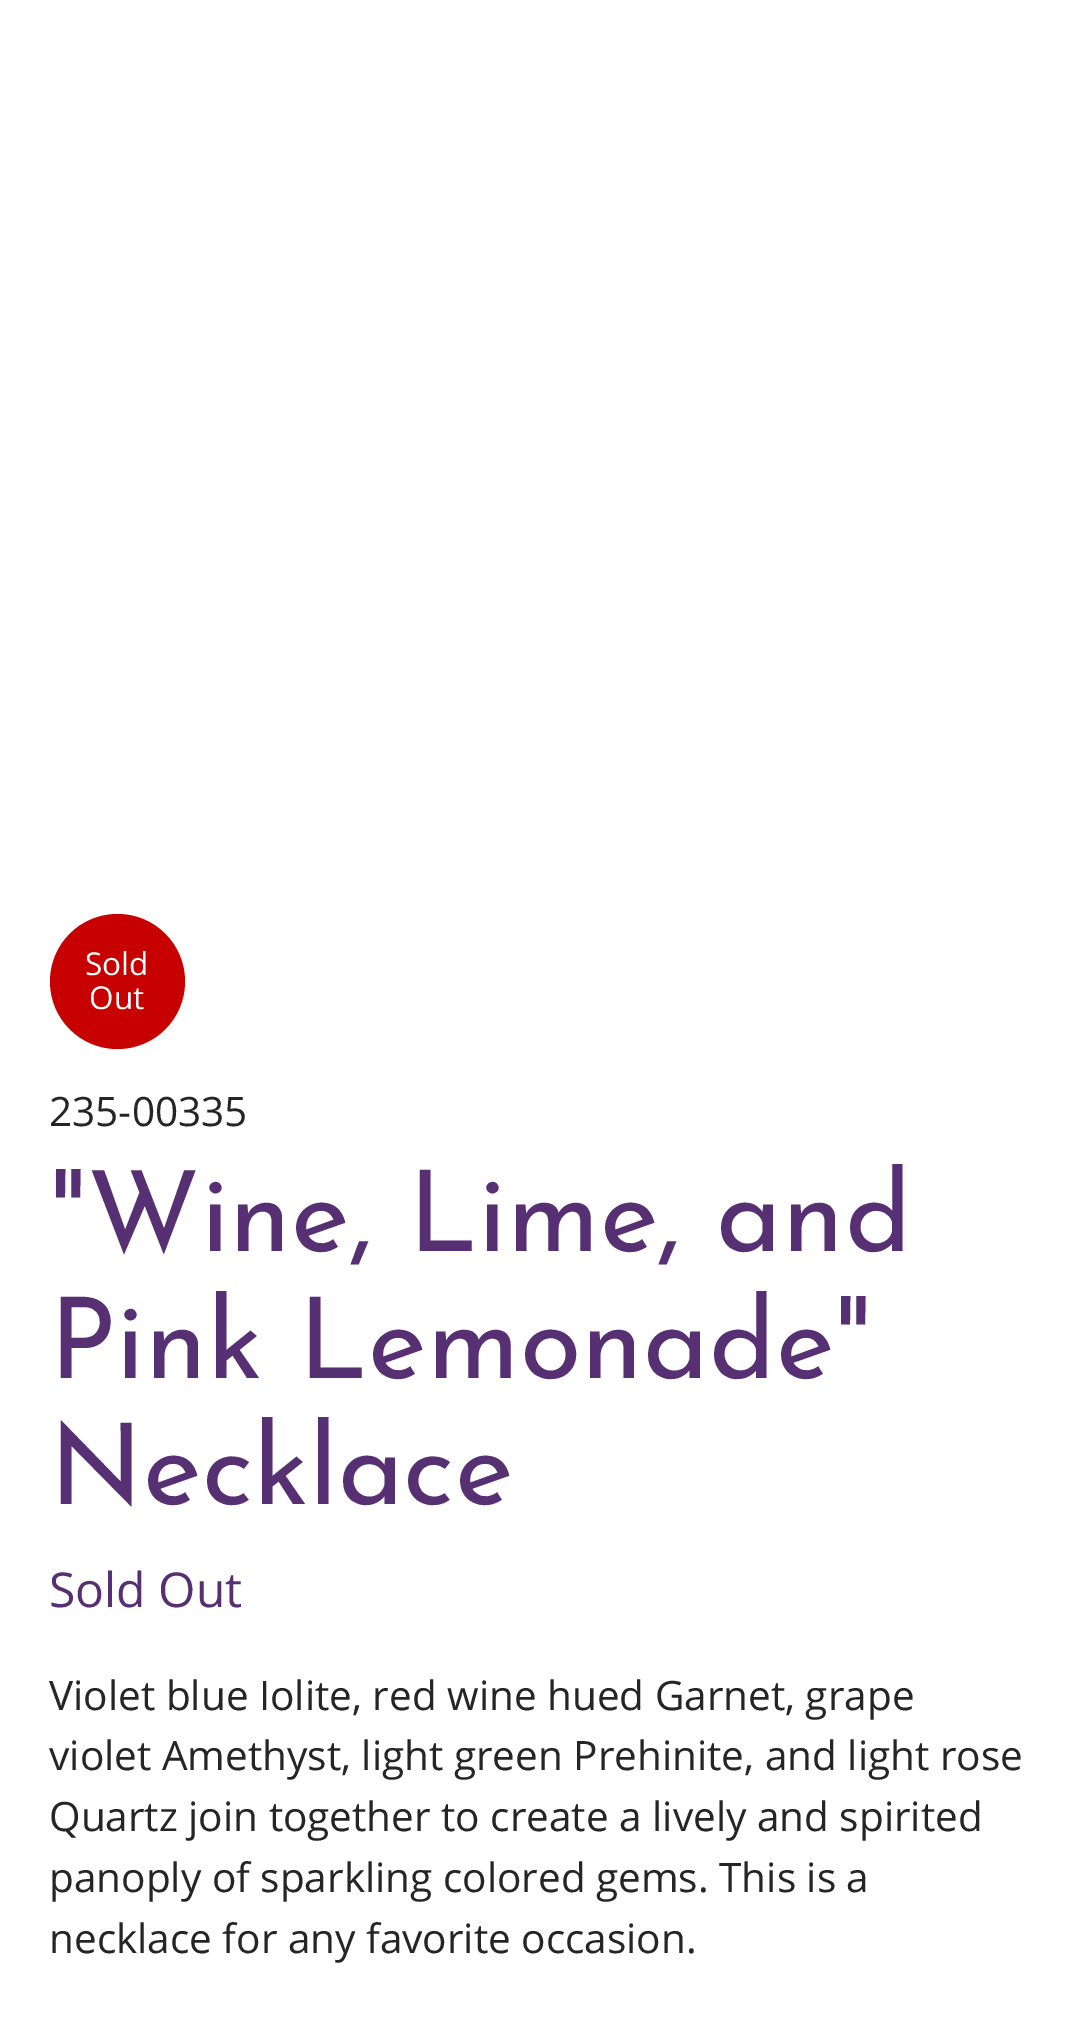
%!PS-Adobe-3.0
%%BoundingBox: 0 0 1072 2027
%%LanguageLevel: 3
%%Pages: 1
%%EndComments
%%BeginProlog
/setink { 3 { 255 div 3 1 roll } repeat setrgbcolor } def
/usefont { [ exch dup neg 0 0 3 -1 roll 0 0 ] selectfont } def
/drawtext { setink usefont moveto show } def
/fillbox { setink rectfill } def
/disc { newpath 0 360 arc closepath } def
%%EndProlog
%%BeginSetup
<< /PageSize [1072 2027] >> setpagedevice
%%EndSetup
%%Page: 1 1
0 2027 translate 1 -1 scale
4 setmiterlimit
0 0 1072 2027 255 255 255 fillbox
199 0 0 setink
117.5 981.5 67.5 disc fill
(Sold) 85 975 /OpenSans-Regular 31.5 255 255 255 drawtext
(Out) 89 1009 /OpenSans-Regular 31.5 255 255 255 drawtext
(235-00335) 49 1126 /OpenSans-Regular 40.5 37 37 37 drawtext
("Wine, Lime, and) 49 1251 /JosefinSans-Regular 112.5 87 48 115 drawtext
(Pink Lemonade") 49 1378 /JosefinSans-Regular 112.5 87 48 115 drawtext
(Necklace) 49 1504 /JosefinSans-Regular 112.5 87 48 115 drawtext
(Sold Out) 49 1607 /OpenSans-Regular 48 87 48 115 drawtext
(Violet blue Iolite, red wine hued Garnet, grape) 49 1710 /OpenSans-Regular 40.5 37 37 37 drawtext
(violet Amethyst, light green Prehinite, and light rose) 49 1770 /OpenSans-Regular 40.5 37 37 37 drawtext
(Quartz join together to create a lively and spirited) 49 1831 /OpenSans-Regular 40.5 37 37 37 drawtext
(panoply of sparkling colored gems. This is a) 49 1892 /OpenSans-Regular 40.5 37 37 37 drawtext
(necklace for any favorite occasion.) 49 1953 /OpenSans-Regular 40.5 37 37 37 drawtext
showpage
%%EOF
